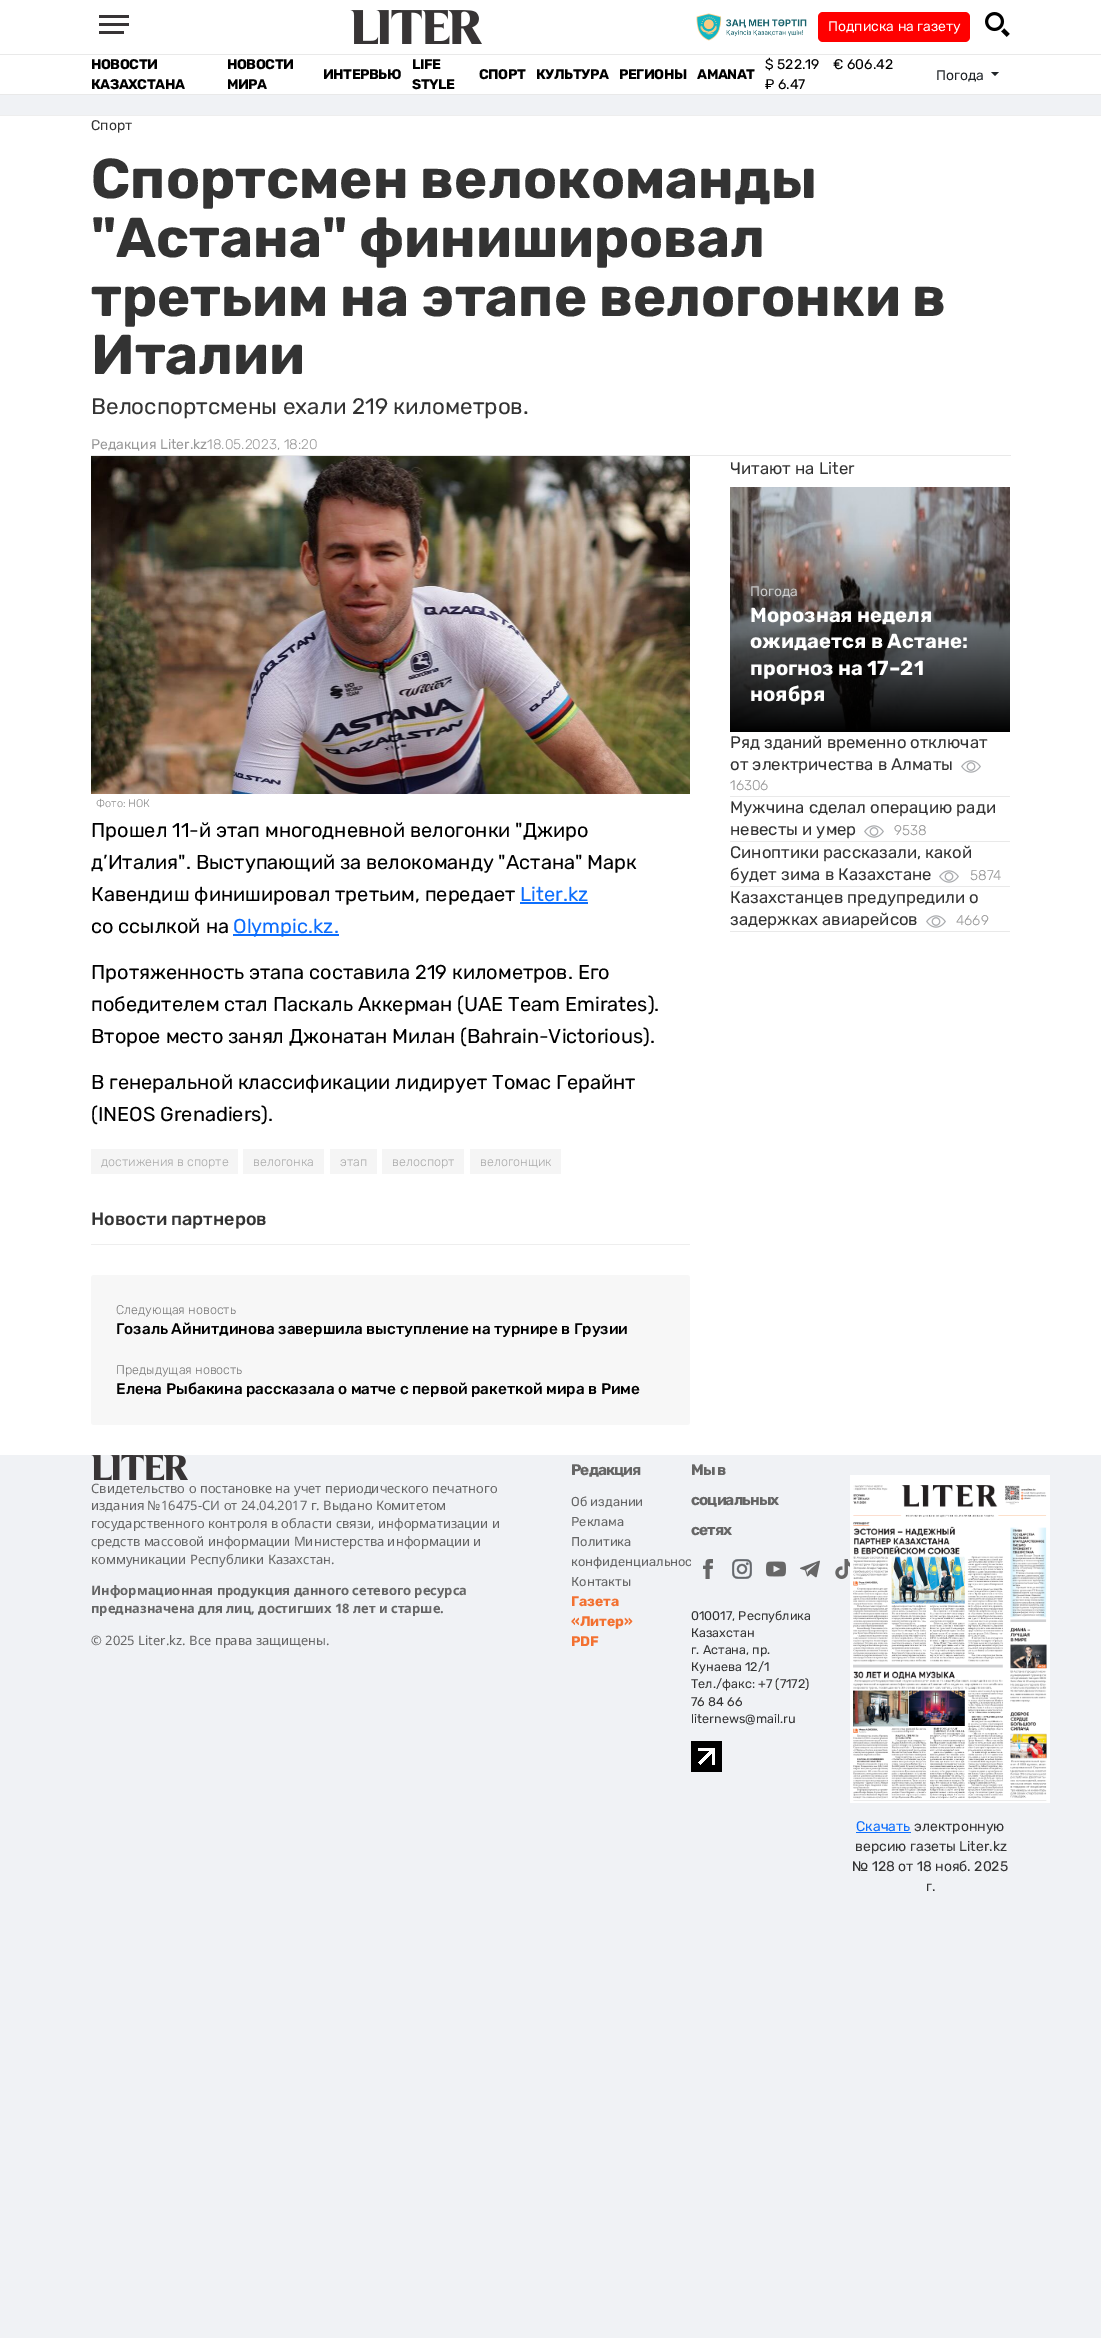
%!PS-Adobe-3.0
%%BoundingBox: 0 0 1101 2338
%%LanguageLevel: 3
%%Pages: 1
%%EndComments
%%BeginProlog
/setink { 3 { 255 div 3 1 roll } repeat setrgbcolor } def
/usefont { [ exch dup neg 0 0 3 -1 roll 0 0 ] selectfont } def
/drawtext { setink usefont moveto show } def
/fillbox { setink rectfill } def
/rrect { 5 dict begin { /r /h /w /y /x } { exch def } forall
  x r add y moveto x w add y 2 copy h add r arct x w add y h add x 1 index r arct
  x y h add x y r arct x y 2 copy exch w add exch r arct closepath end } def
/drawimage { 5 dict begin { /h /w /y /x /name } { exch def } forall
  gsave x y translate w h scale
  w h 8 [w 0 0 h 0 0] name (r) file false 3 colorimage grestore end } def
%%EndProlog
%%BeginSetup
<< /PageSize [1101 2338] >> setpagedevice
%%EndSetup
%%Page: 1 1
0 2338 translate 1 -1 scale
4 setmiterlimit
0 0 1101 2338 240 242 245 fillbox
0 0 1101 54 255 255 255 fillbox
0 54 1101 1 233 233 233 fillbox
99 15 30 3 55 52 53 fillbox
99 23 30 3 55 52 53 fillbox
99 31 25 3 55 52 53 fillbox
(assets/img1.rgb) 350 10 132 34 drawimage
(assets/img2.rgb) 696 13 111 28 drawimage
255 0 0 setink
818 12 152 30 5 rrect fill
(Подписка на газету) 828 31 /Rubik-Regular 14 255 255 255 drawtext
(assets/img3.rgb) 985 12 25 25 drawimage
0 55 1101 39 255 255 255 fillbox
0 94 1101 1 233 233 233 fillbox
/Rubik-Bold 14 usefont
0 0 0 setink
91 69 moveto -0.5 0 (НОВОСТИ) ashow
91 89 moveto -0.5 0 (КАЗАХСТАНА) ashow
227 69 moveto -0.5 0 (НОВОСТИ) ashow
227 89 moveto -0.5 0 (МИРА) ashow
323 79 moveto -0.5 0 (ИНТЕРВЬЮ) ashow
412 69 moveto -0.5 0 (LIFE) ashow
412 89 moveto -0.5 0 (STYLE) ashow
479 79 moveto -0.5 0 (СПОРТ) ashow
536 79 moveto -0.5 0 (КУЛЬТУРА) ashow
619 79 moveto -0.5 0 (РЕГИОНЫ) ashow
697 79 moveto -0.5 0 (AMANAT) ashow
($ 522.19) 765 69 /Rubik-Regular 14 0 0 0 drawtext
(€ 606.42) 833 69 /Rubik-Regular 14 0 0 0 drawtext
(₽ 6.47) 765 89 /Rubik-Regular 14 0 0 0 drawtext
(Погода) 936 80 /Rubik-Regular 14 33 37 41 drawtext
991 72 moveto 999 72 lineto 995 76 lineto closepath fill
0 115 1101 1 238 238 238 fillbox
0 116 1101 1339 255 255 255 fillbox
91 455 920 1 233 233 233 fillbox
(Спорт) 91 130 /Rubik-Regular 14 51 51 51 drawtext
(Спортсмен велокоманды) 91 198 /Rubik-Bold 56 51 51 51 drawtext
("Астана" финишировал) 91 257 /Rubik-Bold 56 51 51 51 drawtext
(третьим на этапе велогонки в) 91 316 /Rubik-Bold 56 51 51 51 drawtext
(Италии) 91 374 /Rubik-Bold 56 51 51 51 drawtext
(Велоспортсмены ехали 219 километров.) 91 414 /Rubik-Regular 22.4 51 51 51 drawtext
(Редакция Liter.kz) 91 449 /Rubik-Regular 14 153 153 153 drawtext
(18.05.2023, 18:20) 207 449 /Rubik-Light 14 153 153 153 drawtext
(Читают на Liter) 730 474 /Rubik-Regular 16.75 51 51 51 drawtext
(assets/img4.rgb) 730 487 280 245 drawimage
(Погода) 750 596 /Rubik-Regular 14 201 201 201 drawtext
(Морозная неделя) 750 622 /Rubik-Bold 20.25 255 255 255 drawtext
(ожидается в Астане:) 750 648 /Rubik-Bold 20.25 255 255 255 drawtext
(прогноз на 17–21) 750 675 /Rubik-Bold 20.25 255 255 255 drawtext
(ноября) 750 701 /Rubik-Bold 20.25 255 255 255 drawtext
730 796 280 1 233 233 233 fillbox
(Ряд зданий временно отключат) 730 748 /Rubik-Regular 16.75 51 51 51 drawtext
(от электричества в Алматы) 730 770 /Rubik-Regular 16.75 51 51 51 drawtext
(assets/img5.rgb) 961 760 20 13 drawimage
(16306) 730 790 /Rubik-Light 14 145 145 145 drawtext
730 841 280 1 233 233 233 fillbox
(Мужчина сделал операцию ради) 730 813 /Rubik-Regular 16.75 51 51 51 drawtext
(невесты и умер) 730 835 /Rubik-Regular 16.75 51 51 51 drawtext
(assets/img5.rgb) 864 825 20 13 drawimage
(9538) 894 835 /Rubik-Light 14 145 145 145 drawtext
730 886 280 1 233 233 233 fillbox
(Синоптики рассказали, какой) 730 858 /Rubik-Regular 16.75 51 51 51 drawtext
(будет зима в Казахстане) 730 880 /Rubik-Regular 16.75 51 51 51 drawtext
(assets/img5.rgb) 939 870 20 13 drawimage
(5874) 970 880 /Rubik-Light 14 145 145 145 drawtext
730 931 280 1 233 233 233 fillbox
(Казахстанцев предупредили о) 730 903 /Rubik-Regular 16.75 51 51 51 drawtext
(задержках авиарейсов) 730 925 /Rubik-Regular 16.75 51 51 51 drawtext
(assets/img5.rgb) 926 915 20 13 drawimage
(4669) 956 925 /Rubik-Light 14 145 145 145 drawtext
(assets/img6.rgb) 91 456 599 338 drawimage
(Фото: НОК) 96 807 /Rubik-Light 11 136 136 136 drawtext
(Прошел 11-й этап многодневной велогонки "Джиро) 91 837 /Rubik-Regular 20 0 0 0 drawtext
(д’Италия". Выступающий за велокоманду "Астана" Марк) 91 869 /Rubik-Regular 20 0 0 0 drawtext
(Кавендиш финишировал третьим, передает) 91 901 /Rubik-Regular 20 0 0 0 drawtext
(Liter.kz) 520 901 /Rubik-Regular 20 13 110 253 drawtext
520 902 68 2 13 110 253 fillbox
(со ссылкой на) 91 933 /Rubik-Regular 20 0 0 0 drawtext
233 934 106 2 13 110 253 fillbox
(Оlympic.kz.) 233 933 /Rubik-Regular 20 13 110 253 drawtext
(Протяженность этапа составила 219 километров. Его) 91 979 /Rubik-Regular 20 0 0 0 drawtext
(победителем стал Паскаль Аккерман \(UAE Team Emirates\).) 91 1011 /Rubik-Regular 20 0 0 0 drawtext
(Второе место занял Джонатан Милан \(Bahrain-Victorious\).) 91 1043 /Rubik-Regular 20 0 0 0 drawtext
(В генеральной классификации лидирует Томас Герайнт) 91 1089 /Rubik-Regular 20 0 0 0 drawtext
(\(INEOS Grenadiers\).) 91 1121 /Rubik-Regular 20 0 0 0 drawtext
91 1149 147 25 245 245 245 fillbox
(достижения в спорте) 101 1166 /Rubik-Light 12.6 170 170 170 drawtext
243 1149 81 25 245 245 245 fillbox
(велогонка) 253 1166 /Rubik-Light 12.6 170 170 170 drawtext
330 1149 47 25 245 245 245 fillbox
(этап) 340 1166 /Rubik-Light 12.6 170 170 170 drawtext
382 1149 82 25 245 245 245 fillbox
(велоспорт) 392 1166 /Rubik-Light 12.6 170 170 170 drawtext
470 1149 91 25 245 245 245 fillbox
(велогонщик) 480 1166 /Rubik-Light 12.6 170 170 170 drawtext
91 1244 599 1 238 238 238 fillbox
(Новости партнеров) 91 1225 /Rubik-Medium 18 51 51 51 drawtext
247 247 247 setink
91 1275 599 150 3 rrect fill
(Следующая новость) 116 1314 /Rubik-Light 12.6 119 119 119 drawtext
(Гозаль Айнитдинова завершила выступление на турнире в Грузии) 116 1334 /Rubik-Medium 15.4 0 0 0 drawtext
(Предыдущая новость) 116 1374 /Rubik-Light 12.6 119 119 119 drawtext
(Елена Рыбакина рассказала о матче с первой ракеткой мира в Риме) 116 1394 /Rubik-Medium 15.4 0 0 0 drawtext
(assets/img7.rgb) 91 1455 97 25 drawimage
(Свидетельство о постановке на учет периодического печатного) 91 1493 /NotoSans-Regular 13 102 102 102 drawtext
(издания №16475-СИ от 24.04.2017 г. Выдано Комитетом) 91 1510 /NotoSans-Regular 13 102 102 102 drawtext
(государственного контроля в области связи, информатизации и) 91 1528 /NotoSans-Regular 13 102 102 102 drawtext
(средств массовой информации Министерства информации и) 91 1546 /NotoSans-Regular 13 102 102 102 drawtext
(коммуникации Республики Казахстан.) 91 1564 /NotoSans-Regular 13 102 102 102 drawtext
(Информационная продукция данного сетевого ресурса) 91 1595 /NotoSans-Bold 13 102 102 102 drawtext
(предназначена для лиц, достигших 18 лет и старше.) 91 1613 /NotoSans-Bold 13 102 102 102 drawtext
(© 2025 Liter.kz. Все права защищены.) 91 1645 /NotoSans-Regular 13 102 102 102 drawtext
/Rubik-Bold 15.4 usefont
571 1475 moveto -1 0 (Редакция) ashow
(Об издании) 571 1506 /Rubik-Regular 12.9 102 102 102 drawtext
(Реклама) 571 1526 /Rubik-Regular 12.9 102 102 102 drawtext
(Политика) 571 1546 /Rubik-Regular 12.9 102 102 102 drawtext
(конфиденциальнос) 571 1566 /Rubik-Regular 12.9 102 102 102 drawtext
(Контакты) 571 1586 /Rubik-Regular 12.9 102 102 102 drawtext
(Газета) 571 1606 /Rubik-Bold 14 243 113 49 drawtext
(«Литер») 571 1626 /Rubik-Bold 14 243 113 49 drawtext
(PDF) 571 1646 /Rubik-Bold 14 243 113 49 drawtext
/Rubik-Bold 15.4 usefont
102 102 102 setink
691 1475 moveto -1 0 (Мы в) ashow
691 1505 moveto -1 0 (социальных) ashow
691 1535 moveto -1 0 (сетях) ashow
240 242 245 setink
691 1552 34 35 6 rrect fill
(assets/img8.rgb) 703 1559 10 20 drawimage
(assets/img9.rgb) 732 1559 20 20 drawimage
(assets/img10.rgb) 766 1561 20 16 drawimage
(assets/img11.rgb) 800 1560 20 18 drawimage
(assets/img12.rgb) 835 1559 15 20 drawimage
(010017, Республика) 691 1620 /Rubik-Regular 12.6 51 51 51 drawtext
(Казахстан) 691 1637 /Rubik-Regular 12.6 51 51 51 drawtext
(г. Астана, пр.) 691 1654 /Rubik-Regular 12.6 51 51 51 drawtext
(Кунаева 12/1) 691 1671 /Rubik-Regular 12.6 51 51 51 drawtext
(Тел./факс: +7 \(7172\)) 691 1688 /Rubik-Regular 12.6 51 51 51 drawtext
(76 84 66) 691 1706 /Rubik-Regular 12.6 51 51 51 drawtext
(liternews@mail.ru) 691 1723 /Rubik-Regular 12.6 51 51 51 drawtext
(assets/img13.rgb) 691 1741 31 31 drawimage
(assets/img14.rgb) 850 1475 200 328 drawimage
(Скачать) 856 1831 /Rubik-Regular 14 13 110 253 drawtext
856 1832 55 1 13 110 253 fillbox
(электронную) 914 1831 /Rubik-Regular 14 51 51 51 drawtext
(версию газеты Liter.kz) 855 1851 /Rubik-Regular 14 51 51 51 drawtext
(№ 128 от 18 нояб. 2025) 852 1871 /Rubik-Regular 14 51 51 51 drawtext
(г.) 926 1891 /Rubik-Regular 14 51 51 51 drawtext
showpage
%%EOF
